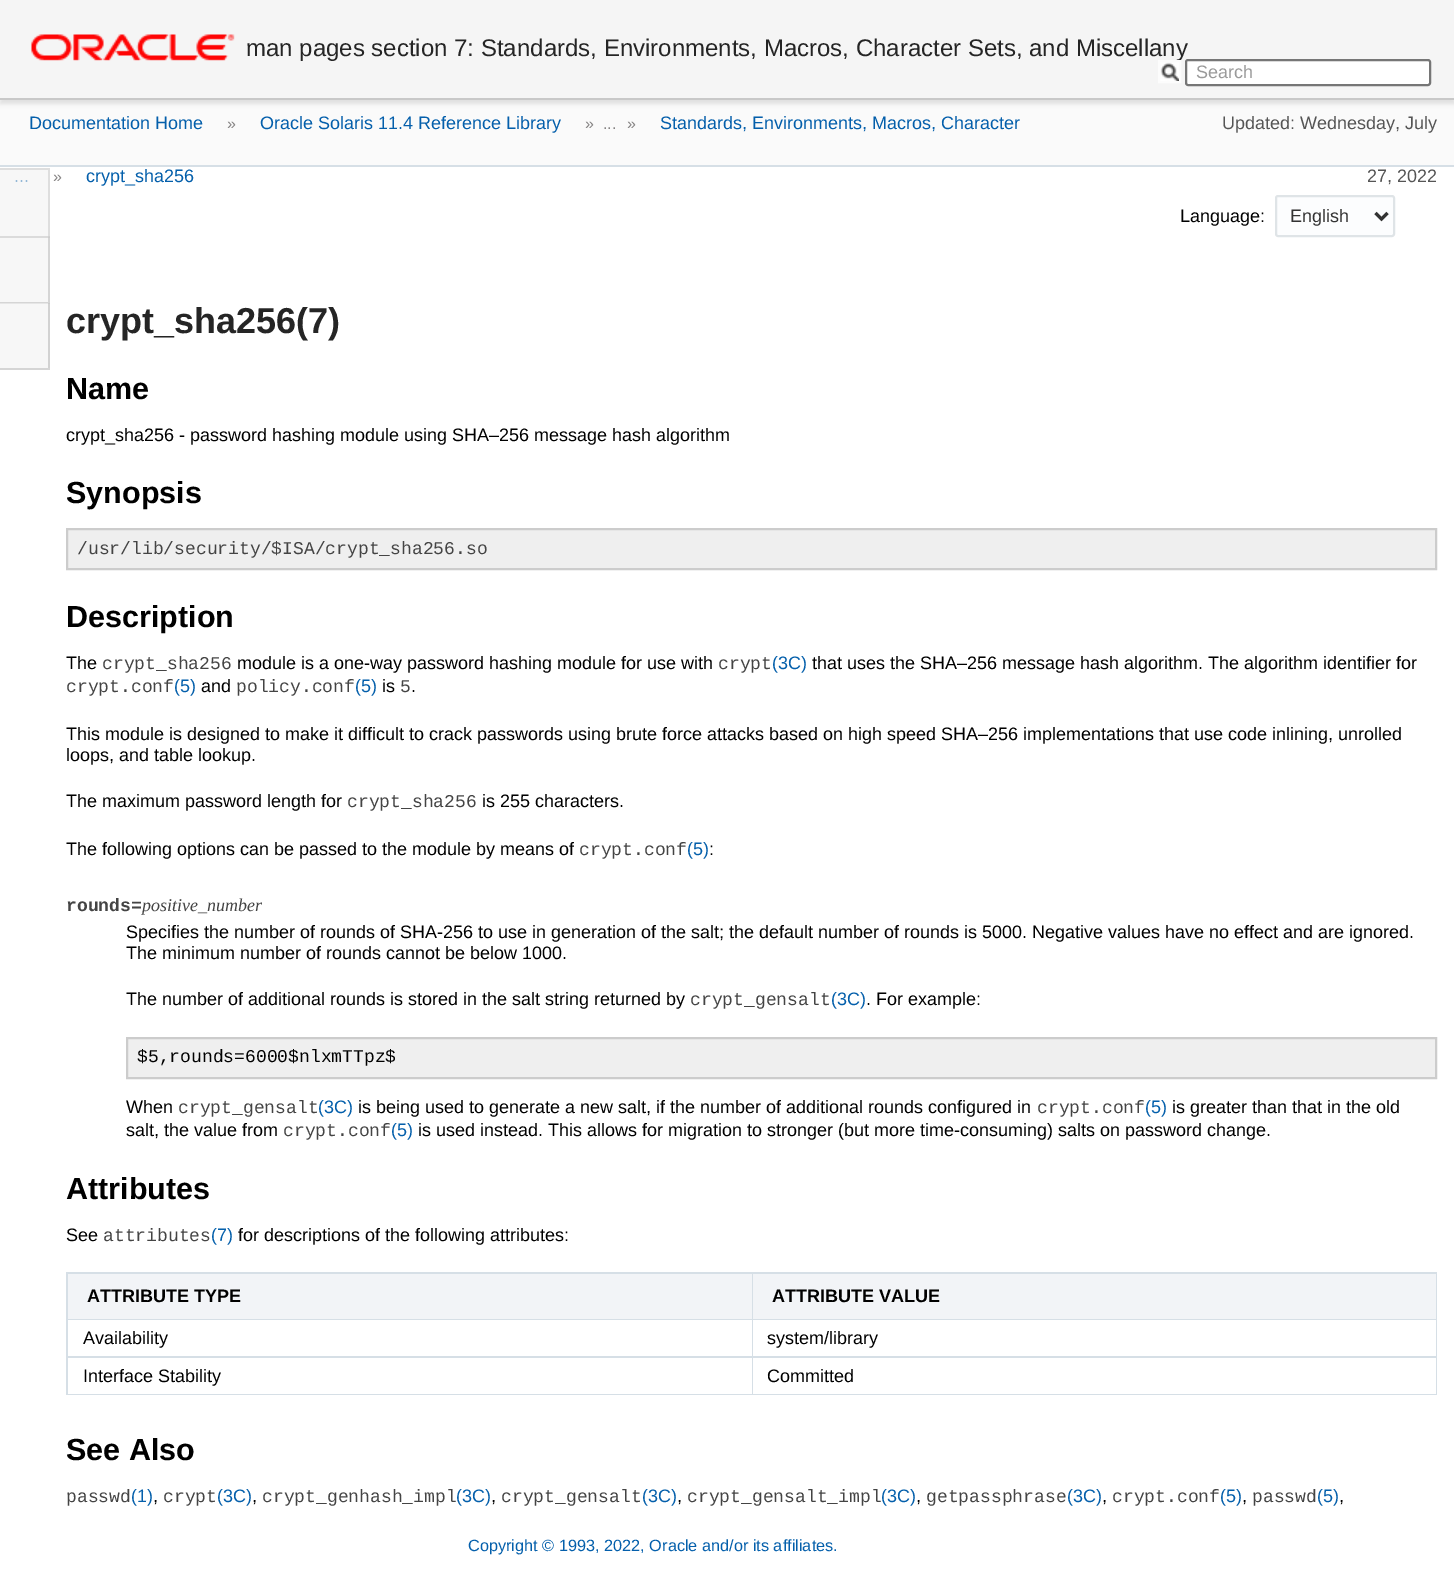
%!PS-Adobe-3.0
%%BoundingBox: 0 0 1454 1574
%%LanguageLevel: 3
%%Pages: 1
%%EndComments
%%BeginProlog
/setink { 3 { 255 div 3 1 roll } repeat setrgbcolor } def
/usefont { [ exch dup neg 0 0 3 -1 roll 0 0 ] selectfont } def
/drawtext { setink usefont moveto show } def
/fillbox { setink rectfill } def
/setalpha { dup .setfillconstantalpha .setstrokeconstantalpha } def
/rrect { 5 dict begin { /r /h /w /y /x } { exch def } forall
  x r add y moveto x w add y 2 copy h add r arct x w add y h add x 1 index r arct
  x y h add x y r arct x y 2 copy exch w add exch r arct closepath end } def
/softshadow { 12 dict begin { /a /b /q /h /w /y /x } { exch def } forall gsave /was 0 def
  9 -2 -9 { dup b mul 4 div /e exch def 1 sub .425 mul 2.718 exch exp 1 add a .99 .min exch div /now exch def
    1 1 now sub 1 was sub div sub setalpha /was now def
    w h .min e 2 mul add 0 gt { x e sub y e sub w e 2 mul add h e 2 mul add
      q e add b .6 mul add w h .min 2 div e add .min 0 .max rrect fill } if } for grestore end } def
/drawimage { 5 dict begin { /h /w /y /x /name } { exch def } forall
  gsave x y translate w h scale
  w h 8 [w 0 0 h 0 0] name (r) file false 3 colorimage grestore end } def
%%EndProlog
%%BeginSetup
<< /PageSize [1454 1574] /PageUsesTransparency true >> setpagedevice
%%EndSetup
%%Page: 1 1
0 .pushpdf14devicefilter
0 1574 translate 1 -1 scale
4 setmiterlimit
0 0 1454 1574 255 255 255 fillbox
0 170 48 66 247 247 247 fillbox
0 236 50 2 219 219 219 fillbox
0 304 48 64 247 247 247 fillbox
48 303 2 66 210 210 210 fillbox
0 100 1454 65 250 250 250 fillbox
0 0 0 setink
0 5 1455 99 0 2 0.1 softshadow
0 0 1454 98 245 245 245 fillbox
0 98 1454 2 200 200 200 fillbox
(assets/img1.rgb) 31 34 204 27 drawimage
(man pages section 7: Standards, Environments, Macros, Character Sets, and Miscellany) 246 56 /LiberationSans-Regular 24 37 37 37 drawtext
(assets/img2.rgb) 1160 62 19 19 drawimage
252 252 252 setink
2 setlinewidth
1159 61 21 21 rectstroke
255 255 255 setink
1186 60 244 25 2 rrect gsave fill grestore
118 118 118 setink
stroke
(Search) 1196 78 /LiberationSans-Regular 18 154 154 154 drawtext
0 165 1454 2 214 223 230 fillbox
(Documentation Home) 29 129 /LiberationSans-Regular 18 4 95 171 drawtext
(») 227 129 /LiberationSans-Regular 16 132 130 130 drawtext
(Oracle Solaris 11.4 Reference Library) 260 129 /LiberationSans-Regular 18 4 95 171 drawtext
(»  ...) 585 129 /LiberationSans-Regular 16 132 130 130 drawtext
(») 627 129 /LiberationSans-Regular 16 132 130 130 drawtext
(Standards, Environments, Macros, Character) 660 129 /LiberationSans-Regular 18 4 95 171 drawtext
(...) 14 182 /LiberationSans-Regular 18 147 183 214 drawtext
(») 53 182 /LiberationSans-Regular 16 132 130 130 drawtext
(crypt_sha256) 86 182 /LiberationSans-Regular 18 4 95 171 drawtext
(Updated: Wednesday, July) 1222 129 /LiberationSans-Regular 18 85 85 85 drawtext
(27, 2022) 1367 182 /LiberationSans-Regular 18 85 85 85 drawtext
0 168 50 2 222 222 222 fillbox
48 168 2 69 222 222 222 fillbox
48 236 2 1 209 209 209 fillbox
(Language:) 1180 222 /LiberationSans-Regular 18 0 0 0 drawtext
252 253 254 setink
1276 196 118 40 2 rrect gsave fill grestore
223 228 231 setink
stroke
51 51 51 setink
3 setlinewidth
1375.5 213 moveto 1381.5 219 lineto 1387.5 213 lineto stroke
(English) 1290 222 /LiberationSans-Regular 18 51 51 51 drawtext
(crypt_sha256\(7\)) 66 333 /LiberationSans-Bold 36 37 37 37 drawtext
(Name) 66 399 /LiberationSans-Bold 30.5 0 0 0 drawtext
(crypt_sha256 - password hashing module using SHA–256 message hash algorithm) 66 441 /LiberationSans-Regular 18 0 0 0 drawtext
(Synopsis) 66 503 /LiberationSans-Bold 30.5 0 0 0 drawtext
239 239 239 setink
67 529 moveto 1436 529 lineto 1436 569 lineto 67 569 lineto closepath gsave fill grestore
204 204 204 setink
2 setlinewidth
stroke
(/usr/lib/security/$ISA/crypt_sha256.so) 77 554 /LiberationMono-Regular 18 68 68 68 drawtext
(Description) 66 627 /LiberationSans-Bold 30.5 0 0 0 drawtext
(The) 66 669 /LiberationSans-Regular 18 0 0 0 drawtext
(crypt_sha256) 102 669 /LiberationMono-Regular 18 68 68 68 drawtext
(module is a one-way password hashing module for use with) 237 669 /LiberationSans-Regular 18 0 0 0 drawtext
(crypt) 718 669 /LiberationMono-Regular 18 68 68 68 drawtext
(\(3C\)) 772 669 /LiberationSans-Regular 18 4 95 171 drawtext
(that uses the SHA–256 message hash algorithm. The algorithm identifier for) 812 669 /LiberationSans-Regular 18 0 0 0 drawtext
(crypt.conf) 66 692 /LiberationMono-Regular 18 68 68 68 drawtext
(\(5\)) 174 692 /LiberationSans-Regular 18 4 95 171 drawtext
(and) 201 692 /LiberationSans-Regular 18 0 0 0 drawtext
(policy.conf) 236 692 /LiberationMono-Regular 18 68 68 68 drawtext
(\(5\)) 355 692 /LiberationSans-Regular 18 4 95 171 drawtext
(is) 382 692 /LiberationSans-Regular 18 0 0 0 drawtext
(5) 400 692 /LiberationMono-Regular 18 68 68 68 drawtext
(.) 411 692 /LiberationSans-Regular 18 0 0 0 drawtext
(This module is designed to make it difficult to crack passwords using brute force attacks based on high speed SHA–256 implementations that use code inlining, unrolled) 66 740 /LiberationSans-Regular 18 0 0 0 drawtext
(loops, and table lookup.) 66 761 /LiberationSans-Regular 18 0 0 0 drawtext
(The maximum password length for) 66 807 /LiberationSans-Regular 18 0 0 0 drawtext
(crypt_sha256) 347 807 /LiberationMono-Regular 18 68 68 68 drawtext
(is 255 characters.) 482 807 /LiberationSans-Regular 18 0 0 0 drawtext
(The following options can be passed to the module by means of) 66 855 /LiberationSans-Regular 18 0 0 0 drawtext
(crypt.conf) 579 855 /LiberationMono-Regular 18 68 68 68 drawtext
(\(5\)) 687 855 /LiberationSans-Regular 18 4 95 171 drawtext
(:) 709 855 /LiberationSans-Regular 18 0 0 0 drawtext
(rounds=) 66 911 /LiberationMono-Bold 18 68 68 68 drawtext
(positive_number) 142 911 /LiberationSerif-Italic 18 68 68 68 drawtext
(Specifies the number of rounds of SHA-256 to use in generation of the salt; the default number of rounds is 5000. Negative values have no effect and are ignored.) 126 938 /LiberationSans-Regular 18 0 0 0 drawtext
(The minimum number of rounds cannot be below 1000.) 126 959 /LiberationSans-Regular 18 0 0 0 drawtext
(The number of additional rounds is stored in the salt string returned by) 126 1005 /LiberationSans-Regular 18 0 0 0 drawtext
(crypt_gensalt) 690 1005 /LiberationMono-Regular 18 68 68 68 drawtext
(\(3C\)) 831 1005 /LiberationSans-Regular 18 4 95 171 drawtext
(. For example:) 866 1005 /LiberationSans-Regular 18 0 0 0 drawtext
239 239 239 setink
127 1038 moveto 1436 1038 lineto 1436 1078 lineto 127 1078 lineto closepath gsave fill grestore
204 204 204 setink
stroke
($5,rounds=6000$nlxmTTpz$) 137 1062 /LiberationMono-Regular 18 0 0 0 drawtext
(When) 126 1113 /LiberationSans-Regular 18 0 0 0 drawtext
(crypt_gensalt) 178 1113 /LiberationMono-Regular 18 68 68 68 drawtext
(\(3C\)) 318 1113 /LiberationSans-Regular 18 4 95 171 drawtext
(is being used to generate a new salt, if the number of additional rounds configured in) 358 1113 /LiberationSans-Regular 18 0 0 0 drawtext
(crypt.conf) 1037 1113 /LiberationMono-Regular 18 68 68 68 drawtext
(\(5\)) 1145 1113 /LiberationSans-Regular 18 4 95 171 drawtext
(is greater than that in the old) 1172 1113 /LiberationSans-Regular 18 0 0 0 drawtext
(salt, the value from) 126 1136 /LiberationSans-Regular 18 0 0 0 drawtext
(crypt.conf) 283 1136 /LiberationMono-Regular 18 68 68 68 drawtext
(\(5\)) 391 1136 /LiberationSans-Regular 18 4 95 171 drawtext
(is used instead. This allows for migration to stronger \(but more time-consuming\) salts on password change.) 418 1136 /LiberationSans-Regular 18 0 0 0 drawtext
(Attributes) 66 1199 /LiberationSans-Bold 30.5 0 0 0 drawtext
(See) 66 1241 /LiberationSans-Regular 18 0 0 0 drawtext
(attributes) 103 1241 /LiberationMono-Regular 18 68 68 68 drawtext
(\(7\)) 211 1241 /LiberationSans-Regular 18 4 95 171 drawtext
(for descriptions of the following attributes:) 238 1241 /LiberationSans-Regular 18 0 0 0 drawtext
66 1272 1371 123 214 223 230 fillbox
68 1274 684 45 242 244 247 fillbox
(ATTRIBUTE TYPE) 87 1302 /LiberationSans-Bold 18 0 0 0 drawtext
753 1274 683 45 242 244 247 fillbox
(ATTRIBUTE VALUE) 772 1302 /LiberationSans-Bold 18 0 0 0 drawtext
68 1320 684 36 255 255 255 fillbox
(Availability) 83 1344 /LiberationSans-Regular 18 0 0 0 drawtext
753 1320 683 36 255 255 255 fillbox
(system/library) 767 1344 /LiberationSans-Regular 18 0 0 0 drawtext
68 1358 684 36 255 255 255 fillbox
(Interface Stability) 83 1382 /LiberationSans-Regular 18 0 0 0 drawtext
753 1358 683 36 255 255 255 fillbox
(Committed) 767 1382 /LiberationSans-Regular 18 0 0 0 drawtext
(See Also) 66 1460 /LiberationSans-Bold 30.5 0 0 0 drawtext
(passwd) 66 1502 /LiberationMono-Regular 18 68 68 68 drawtext
(\(1\)) 131 1502 /LiberationSans-Regular 18 4 95 171 drawtext
(,) 153 1502 /LiberationSans-Regular 18 0 0 0 drawtext
(crypt) 163 1502 /LiberationMono-Regular 18 68 68 68 drawtext
(\(3C\)) 217 1502 /LiberationSans-Regular 18 4 95 171 drawtext
(,) 252 1502 /LiberationSans-Regular 18 0 0 0 drawtext
(crypt_genhash_impl) 262 1502 /LiberationMono-Regular 18 68 68 68 drawtext
(\(3C\)) 456 1502 /LiberationSans-Regular 18 4 95 171 drawtext
(,) 491 1502 /LiberationSans-Regular 18 0 0 0 drawtext
(crypt_gensalt) 501 1502 /LiberationMono-Regular 18 68 68 68 drawtext
(\(3C\)) 642 1502 /LiberationSans-Regular 18 4 95 171 drawtext
(,) 677 1502 /LiberationSans-Regular 18 0 0 0 drawtext
(crypt_gensalt_impl) 687 1502 /LiberationMono-Regular 18 68 68 68 drawtext
(\(3C\)) 881 1502 /LiberationSans-Regular 18 4 95 171 drawtext
(,) 916 1502 /LiberationSans-Regular 18 0 0 0 drawtext
(getpassphrase) 926 1502 /LiberationMono-Regular 18 68 68 68 drawtext
(\(3C\)) 1067 1502 /LiberationSans-Regular 18 4 95 171 drawtext
(,) 1102 1502 /LiberationSans-Regular 18 0 0 0 drawtext
(crypt.conf) 1112 1502 /LiberationMono-Regular 18 68 68 68 drawtext
(\(5\)) 1220 1502 /LiberationSans-Regular 18 4 95 171 drawtext
(,) 1242 1502 /LiberationSans-Regular 18 0 0 0 drawtext
(passwd) 1252 1502 /LiberationMono-Regular 18 68 68 68 drawtext
(\(5\)) 1317 1502 /LiberationSans-Regular 18 4 95 171 drawtext
(,) 1339 1502 /LiberationSans-Regular 18 0 0 0 drawtext
0 238 48 64 247 247 247 fillbox
48 237 2 66 213 213 213 fillbox
48 237 2 1 205 205 205 fillbox
0 302 50 1 213 213 213 fillbox
0 303 50 1 230 230 230 fillbox
48 303 2 1 203 203 203 fillbox
0 368 50 2 213 213 213 fillbox
(Copyright © 1993, 2022, Oracle and/or its affiliates.) 468 1551 /LiberationSans-Regular 16.3 4 95 171 drawtext
.poppdf14devicefilter showpage
%%EOF
